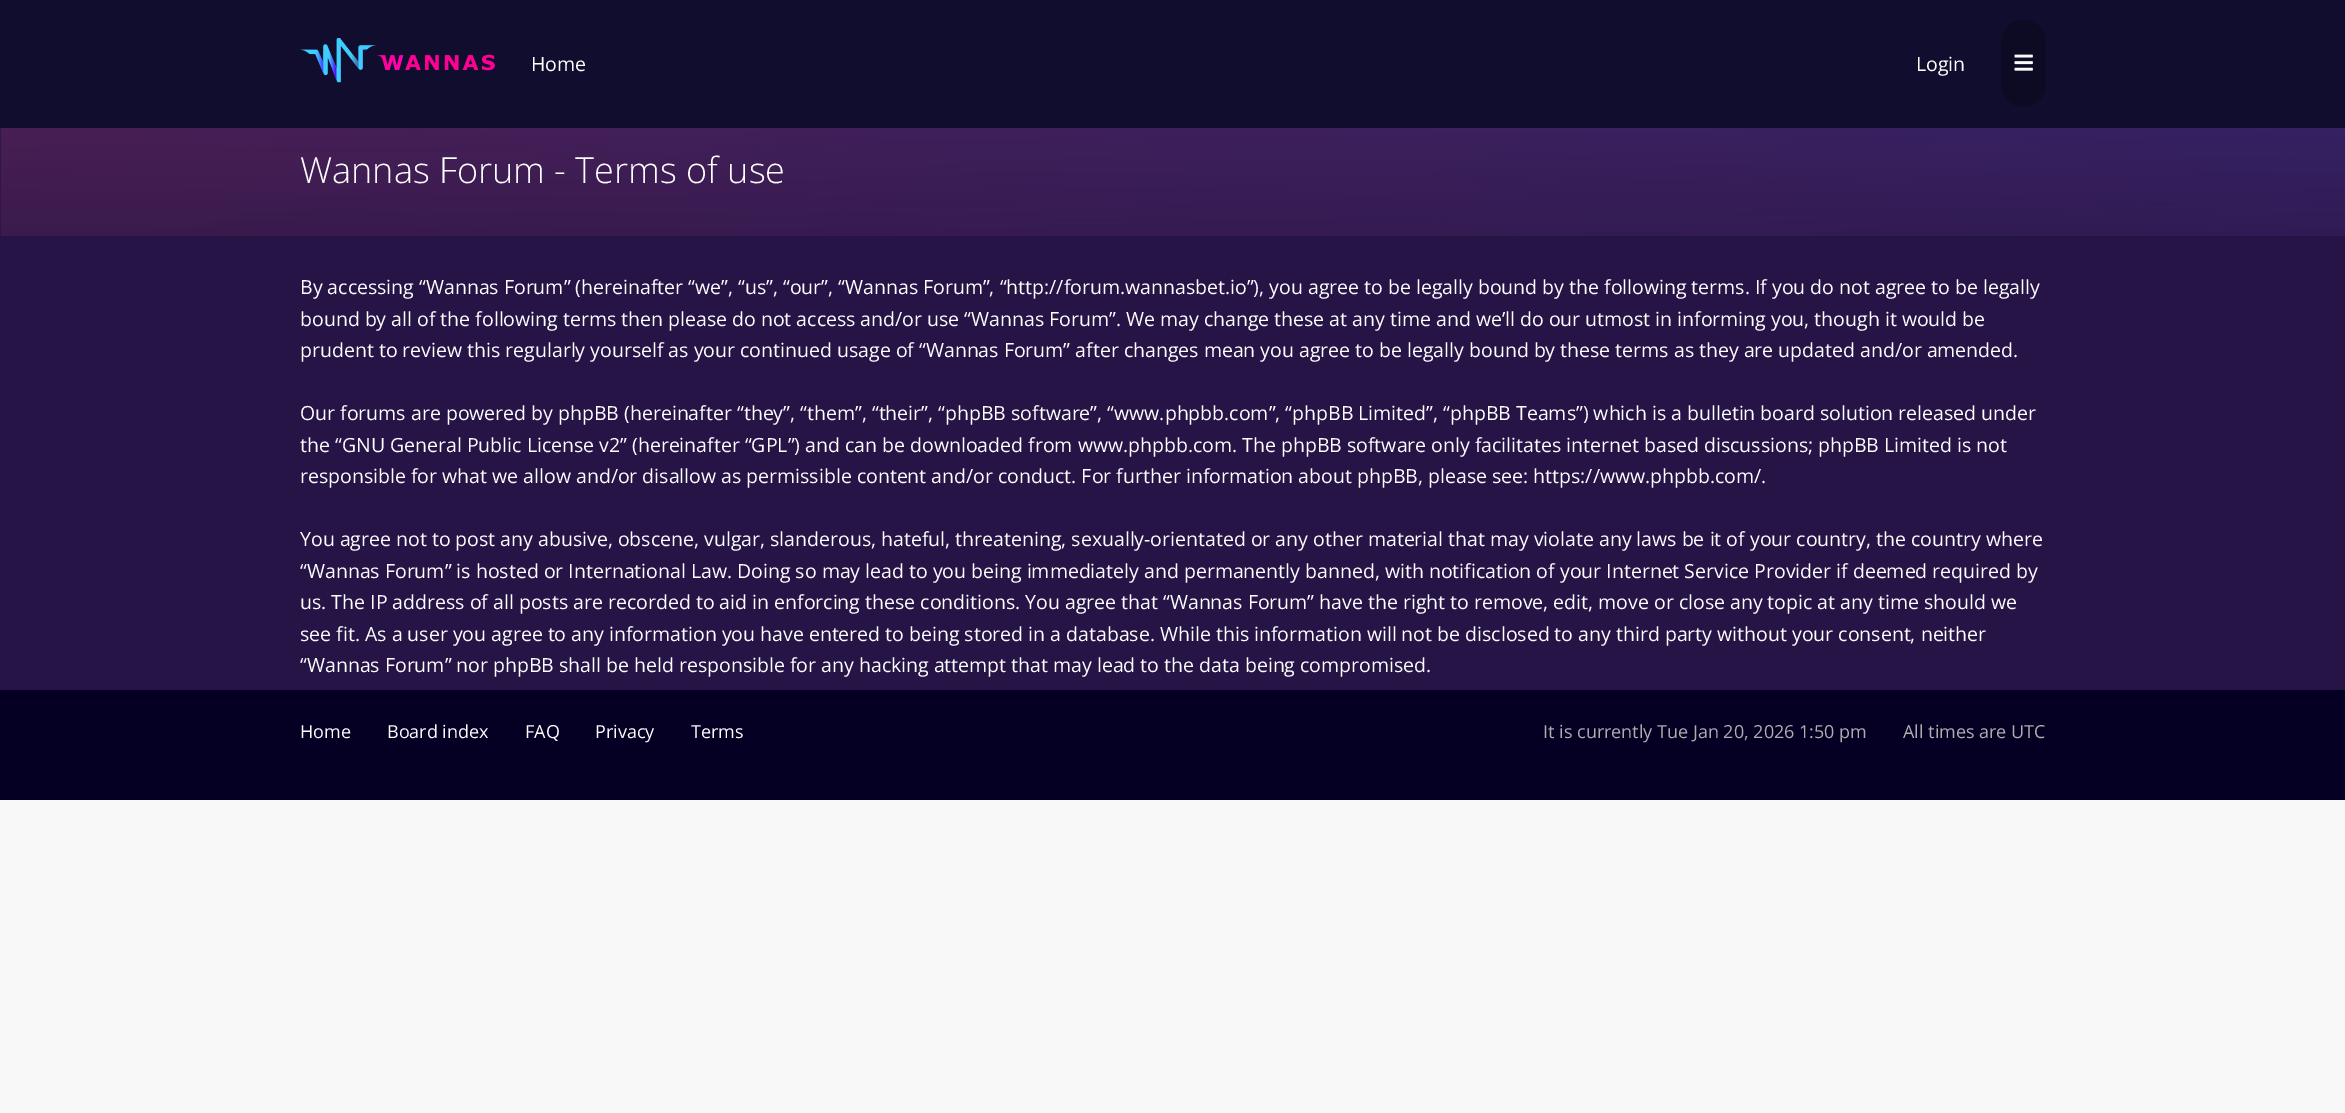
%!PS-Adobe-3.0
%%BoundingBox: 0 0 2345 1113
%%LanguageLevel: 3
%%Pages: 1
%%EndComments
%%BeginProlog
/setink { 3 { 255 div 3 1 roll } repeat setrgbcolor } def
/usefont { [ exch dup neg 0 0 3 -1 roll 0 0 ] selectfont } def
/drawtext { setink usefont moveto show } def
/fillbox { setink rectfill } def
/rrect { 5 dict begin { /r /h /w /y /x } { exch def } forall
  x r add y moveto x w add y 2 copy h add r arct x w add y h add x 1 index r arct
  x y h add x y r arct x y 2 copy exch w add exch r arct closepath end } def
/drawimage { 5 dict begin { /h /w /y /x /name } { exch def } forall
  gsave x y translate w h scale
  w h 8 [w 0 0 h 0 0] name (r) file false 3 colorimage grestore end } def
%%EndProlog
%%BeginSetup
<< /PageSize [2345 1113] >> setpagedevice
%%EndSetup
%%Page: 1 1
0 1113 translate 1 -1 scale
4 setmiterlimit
0 0 2345 1113 248 248 248 fillbox
0 0 2345 128 17 13 46 fillbox
(assets/img1.rgb) 300 38 195 45 drawimage
(Home) 531 71 /OpenSans-Regular 19.5 255 255 255 drawtext
(Login) 1916 71 /OpenSans-Regular 19.5 255 255 255 drawtext
13 10 35 setink
2001 20 45 87 22.5 rrect fill
(assets/img2.rgb) 2014 54 19 17 drawimage
0 128 2345 562 38 20 71 fillbox
(assets/img3.rgb) 0 128 2345 108 drawimage
(Wannas Forum - Terms of use) 300 183 /OpenSans-Light 36 255 255 255 drawtext
(By accessing “Wannas Forum” \(hereinafter “we”, “us”, “our”, “Wannas Forum”, “http://forum.wannasbet.io”\), you agree to be legally bound by the following terms. If you do not agree to be legally) 300 294 /OpenSans-Regular 19.5 255 255 255 drawtext
(bound by all of the following terms then please do not access and/or use “Wannas Forum”. We may change these at any time and we’ll do our utmost in informing you, though it would be) 300 326 /OpenSans-Regular 19.5 255 255 255 drawtext
(prudent to review this regularly yourself as your continued usage of “Wannas Forum” after changes mean you agree to be legally bound by these terms as they are updated and/or amended.) 300 357 /OpenSans-Regular 19.5 255 255 255 drawtext
(Our forums are powered by phpBB \(hereinafter “they”, “them”, “their”, “phpBB software”, “www.phpbb.com”, “phpBB Limited”, “phpBB Teams”\) which is a bulletin board solution released under) 300 420 /OpenSans-Regular 19.5 255 255 255 drawtext
(the “GNU General Public License v2” \(hereinafter “GPL”\) and can be downloaded from www.phpbb.com. The phpBB software only facilitates internet based discussions; phpBB Limited is not) 300 452 /OpenSans-Regular 19.5 255 255 255 drawtext
(responsible for what we allow and/or disallow as permissible content and/or conduct. For further information about phpBB, please see: https://www.phpbb.com/.) 300 483 /OpenSans-Regular 19.5 255 255 255 drawtext
(You agree not to post any abusive, obscene, vulgar, slanderous, hateful, threatening, sexually-orientated or any other material that may violate any laws be it of your country, the country where) 300 546 /OpenSans-Regular 19.5 255 255 255 drawtext
(“Wannas Forum” is hosted or International Law. Doing so may lead to you being immediately and permanently banned, with notification of your Internet Service Provider if deemed required by) 300 578 /OpenSans-Regular 19.5 255 255 255 drawtext
(us. The IP address of all posts are recorded to aid in enforcing these conditions. You agree that “Wannas Forum” have the right to remove, edit, move or close any topic at any time should we) 300 609 /OpenSans-Regular 19.5 255 255 255 drawtext
(see fit. As a user you agree to any information you have entered to being stored in a database. While this information will not be disclosed to any third party without your consent, neither) 300 641 /OpenSans-Regular 19.5 255 255 255 drawtext
(“Wannas Forum” nor phpBB shall be held responsible for any hacking attempt that may lead to the data being compromised.) 300 672 /OpenSans-Regular 19.5 255 255 255 drawtext
0 690 2345 110 5 0 35 fillbox
(Home) 300 738 /OpenSans-Regular 18 255 255 255 drawtext
(Board index) 387 738 /OpenSans-Regular 18 255 255 255 drawtext
(FAQ) 525 738 /OpenSans-Regular 18 255 255 255 drawtext
(Privacy) 595 738 /OpenSans-Regular 18 255 255 255 drawtext
(Terms) 691 738 /OpenSans-Regular 18 255 255 255 drawtext
(It is currently Tue Jan 20, 2026 1:50 pm) 1543 738 /OpenSans-Regular 18 174 174 174 drawtext
(All times are UTC) 1903 738 /OpenSans-Regular 18 174 174 174 drawtext
showpage
%%EOF
